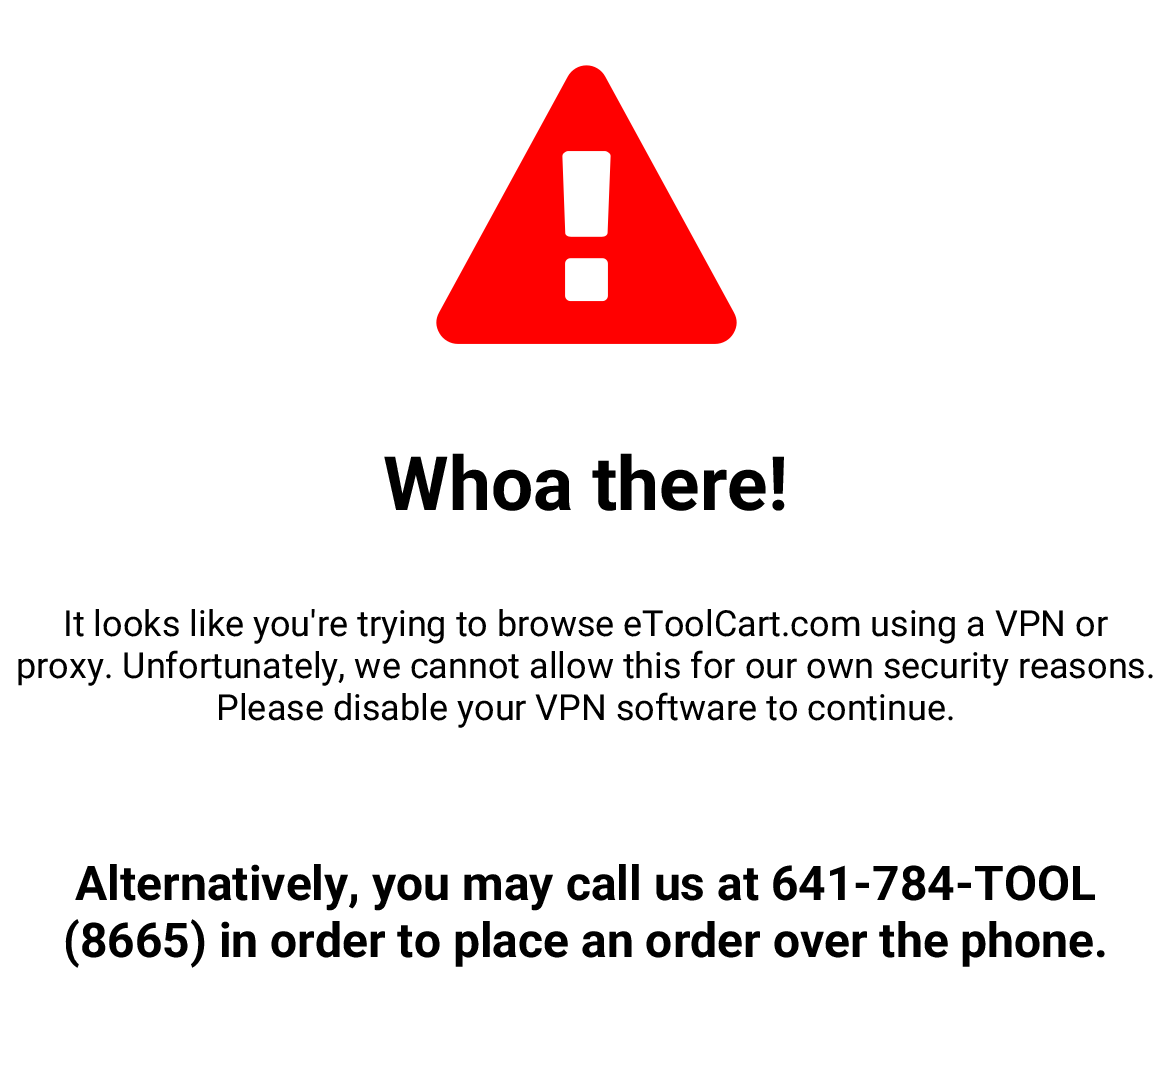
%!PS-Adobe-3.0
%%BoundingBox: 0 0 1171 1091
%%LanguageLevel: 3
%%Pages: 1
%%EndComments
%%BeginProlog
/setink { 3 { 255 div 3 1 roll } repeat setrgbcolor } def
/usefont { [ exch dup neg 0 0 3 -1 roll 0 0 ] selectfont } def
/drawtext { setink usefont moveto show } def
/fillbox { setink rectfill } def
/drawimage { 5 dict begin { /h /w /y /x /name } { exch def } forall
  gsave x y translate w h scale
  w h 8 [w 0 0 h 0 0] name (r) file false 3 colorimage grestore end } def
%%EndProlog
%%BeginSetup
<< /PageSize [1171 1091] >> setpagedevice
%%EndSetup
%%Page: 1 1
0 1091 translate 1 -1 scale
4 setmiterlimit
0 0 1171 1091 255 255 255 fillbox
(assets/img1.rgb) 436 65 301 279 drawimage
(Whoa there!) 383 510 /Roboto-Bold 75 0 0 0 drawtext
(It looks like you're trying to browse eToolCart.com using a VPN or) 63 636 /Roboto-Regular 36 0 0 0 drawtext
(proxy. Unfortunately, we cannot allow this for our own security reasons.) 16 678 /Roboto-Regular 36 0 0 0 drawtext
(Please disable your VPN software to continue.) 216 720 /Roboto-Regular 36 0 0 0 drawtext
(Alternatively, you may call us at 641-784-TOOL) 75 900 /Roboto-Bold 48 0 0 0 drawtext
(\(8665\) in order to place an order over the phone.) 63 957 /Roboto-Bold 48 0 0 0 drawtext
showpage
%%EOF
